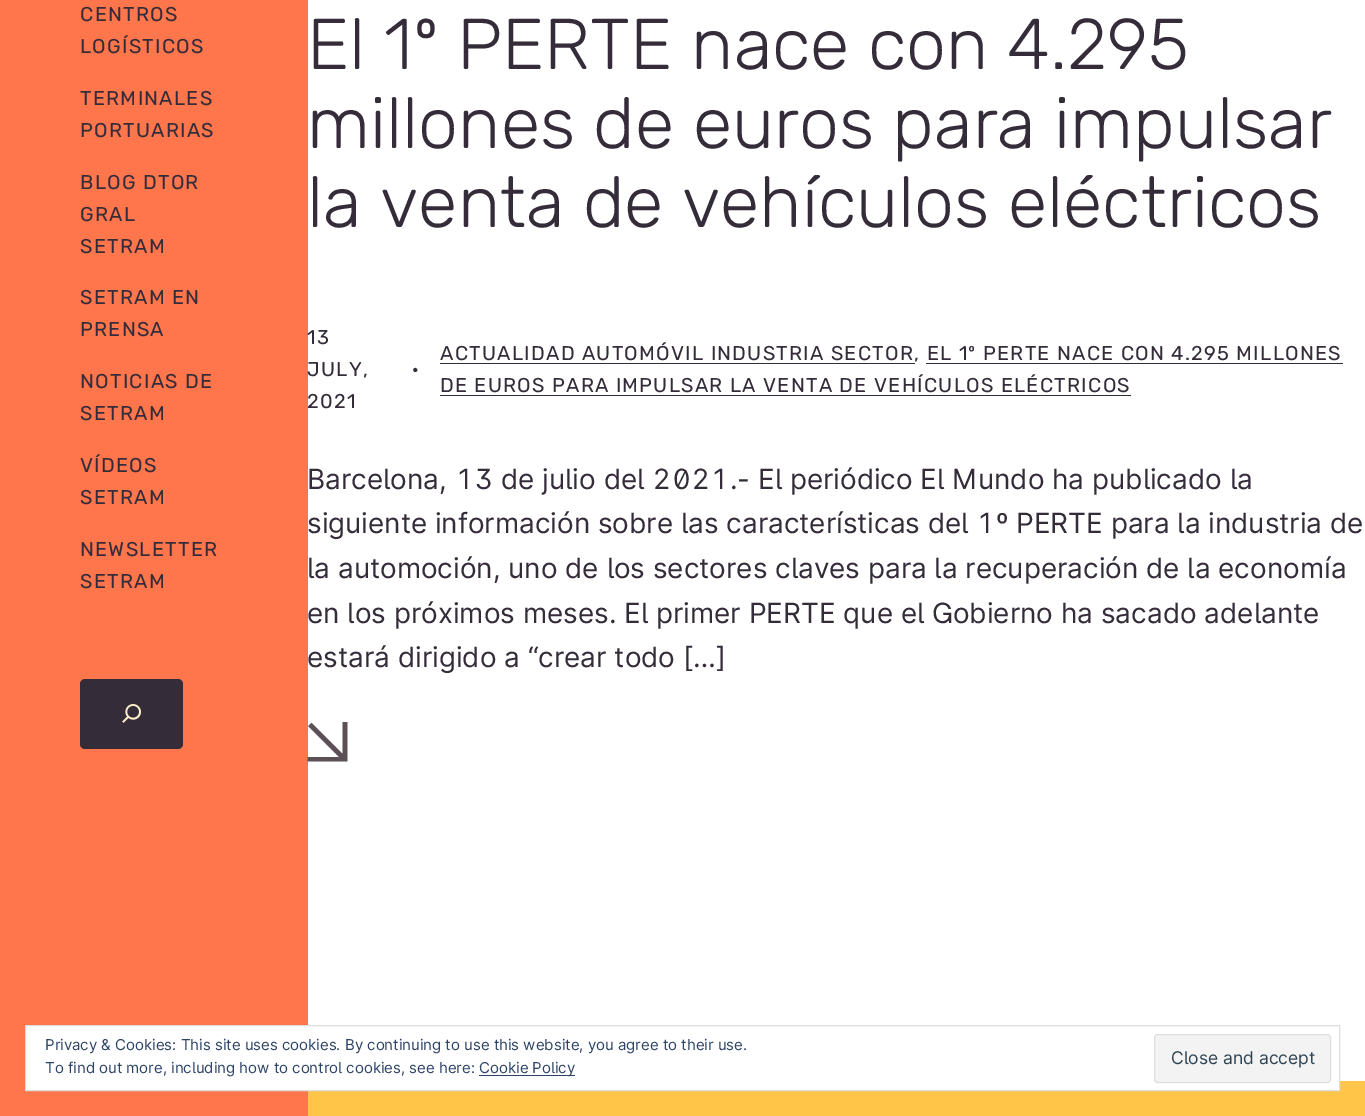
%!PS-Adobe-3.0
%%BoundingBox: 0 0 1365 1116
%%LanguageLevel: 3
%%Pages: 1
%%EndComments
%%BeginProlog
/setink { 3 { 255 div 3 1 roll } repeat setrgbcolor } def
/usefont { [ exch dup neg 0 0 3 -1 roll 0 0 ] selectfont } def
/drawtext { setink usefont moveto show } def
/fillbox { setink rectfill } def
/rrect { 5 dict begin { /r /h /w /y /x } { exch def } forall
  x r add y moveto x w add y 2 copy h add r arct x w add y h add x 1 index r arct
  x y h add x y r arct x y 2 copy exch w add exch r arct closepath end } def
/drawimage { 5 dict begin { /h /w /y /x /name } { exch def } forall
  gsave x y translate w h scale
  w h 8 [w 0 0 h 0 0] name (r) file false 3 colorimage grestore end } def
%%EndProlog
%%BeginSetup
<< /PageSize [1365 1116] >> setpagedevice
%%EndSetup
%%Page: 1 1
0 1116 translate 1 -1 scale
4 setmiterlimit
0 0 1365 1116 255 117 76 fillbox
/Rubik-Regular 19.95 usefont
53 44 58 setink
80 21 moveto 1.25 0 (CENTROS) ashow
80 53 moveto 1.25 0 (LOGÍSTICOS) ashow
80 105 moveto 1.25 0 (TERMINALES) ashow
80 137 moveto 1.25 0 (PORTUARIAS) ashow
80 189 moveto 1.25 0 (BLOG DTOR) ashow
80 221 moveto 1.25 0 (GRAL) ashow
80 253 moveto 1.25 0 (SETRAM) ashow
80 304 moveto 1.25 0 (SETRAM EN) ashow
80 336 moveto 1.25 0 (PRENSA) ashow
80 388 moveto 1.25 0 (NOTICIAS DE) ashow
80 420 moveto 1.25 0 (SETRAM) ashow
80 472 moveto 1.25 0 (VÍDEOS) ashow
80 504 moveto 1.25 0 (SETRAM) ashow
80 556 moveto 1.25 0 (NEWSLETTER) ashow
80 588 moveto 1.25 0 (SETRAM) ashow
80 679 103 70 5 rrect fill
(assets/img1.rgb) 122 704 19 19 drawimage
308 0 1057 1081 255 255 255 fillbox
(El 1º PERTE nace con 4.295) 307 69 /Rubik-Light 71.7 53 44 58 drawtext
(millones de euros para impulsar) 307 148 /Rubik-Light 71.7 53 44 58 drawtext
(la venta de vehículos eléctricos) 307 227 /Rubik-Light 71.7 53 44 58 drawtext
/Rubik-Regular 19.95 usefont
307 344 moveto 1.25 0 (13) ashow
307 376 moveto 1.25 0 (JULY,) ashow
307 408 moveto 1.25 0 (2021) ashow
412 376 moveto 1.25 0 (·) ashow
440 360 moveto 1.25 0 (ACTUALIDAD AUTOMÓVIL INDUSTRIA SECTOR, EL 1º PERTE NACE CON 4.295 MILLONES) ashow
440 363 475 1 53 44 58 fillbox
440 392 moveto 1.25 0 (DE EUROS PARA IMPULSAR LA VENTA DE VEHÍCULOS ELÉCTRICOS) ashow
926 363 417 1 53 44 58 fillbox
440 395 691 1 53 44 58 fillbox
(Barcelona, 13 de julio del 2021.- El periódico El Mundo ha publicado la) 307 489 /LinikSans-Regular 27.9 53 44 58 drawtext
(siguiente información sobre las características del 1º PERTE para la industria de) 307 533 /LinikSans-Regular 27.9 53 44 58 drawtext
(la automoción, uno de los sectores claves para la recuperación de la economía) 307 578 /LinikSans-Regular 27.9 53 44 58 drawtext
(en los próximos meses. El primer PERTE que el Gobierno ha sacado adelante) 307 623 /LinikSans-Regular 27.9 53 44 58 drawtext
(estará dirigido a “crear todo […]) 307 667 /LinikSans-Regular 27.9 53 44 58 drawtext
(assets/img2.rgb) 307 722 41 40 drawimage
308 1081 1057 35 255 197 73 fillbox
255 255 255 setink
25.5 1025.5 moveto 1339.5 1025.5 lineto 1339.5 1090.5 lineto 25.5 1090.5 lineto closepath gsave fill grestore
222 222 222 setink
stroke
(Privacy & Cookies: This site uses cookies. By continuing to use this website, you agree to their use.) 45 1050 /LinikSans-Regular 15 46 68 103 drawtext
(To find out more, including how to control cookies, see here:) 45 1073 /LinikSans-Regular 15 46 68 103 drawtext
479 1075 96 1 46 68 103 fillbox
(Cookie Policy) 479 1073 /LinikSans-Regular 15 46 68 103 drawtext
243 243 243 setink
1154.5 1034.5 176 48 3.5 rrect gsave fill grestore
222 222 222 setink
stroke
(Close and accept) 1171 1064 /LinikSans-Regular 17.5 46 68 83 drawtext
showpage
%%EOF
